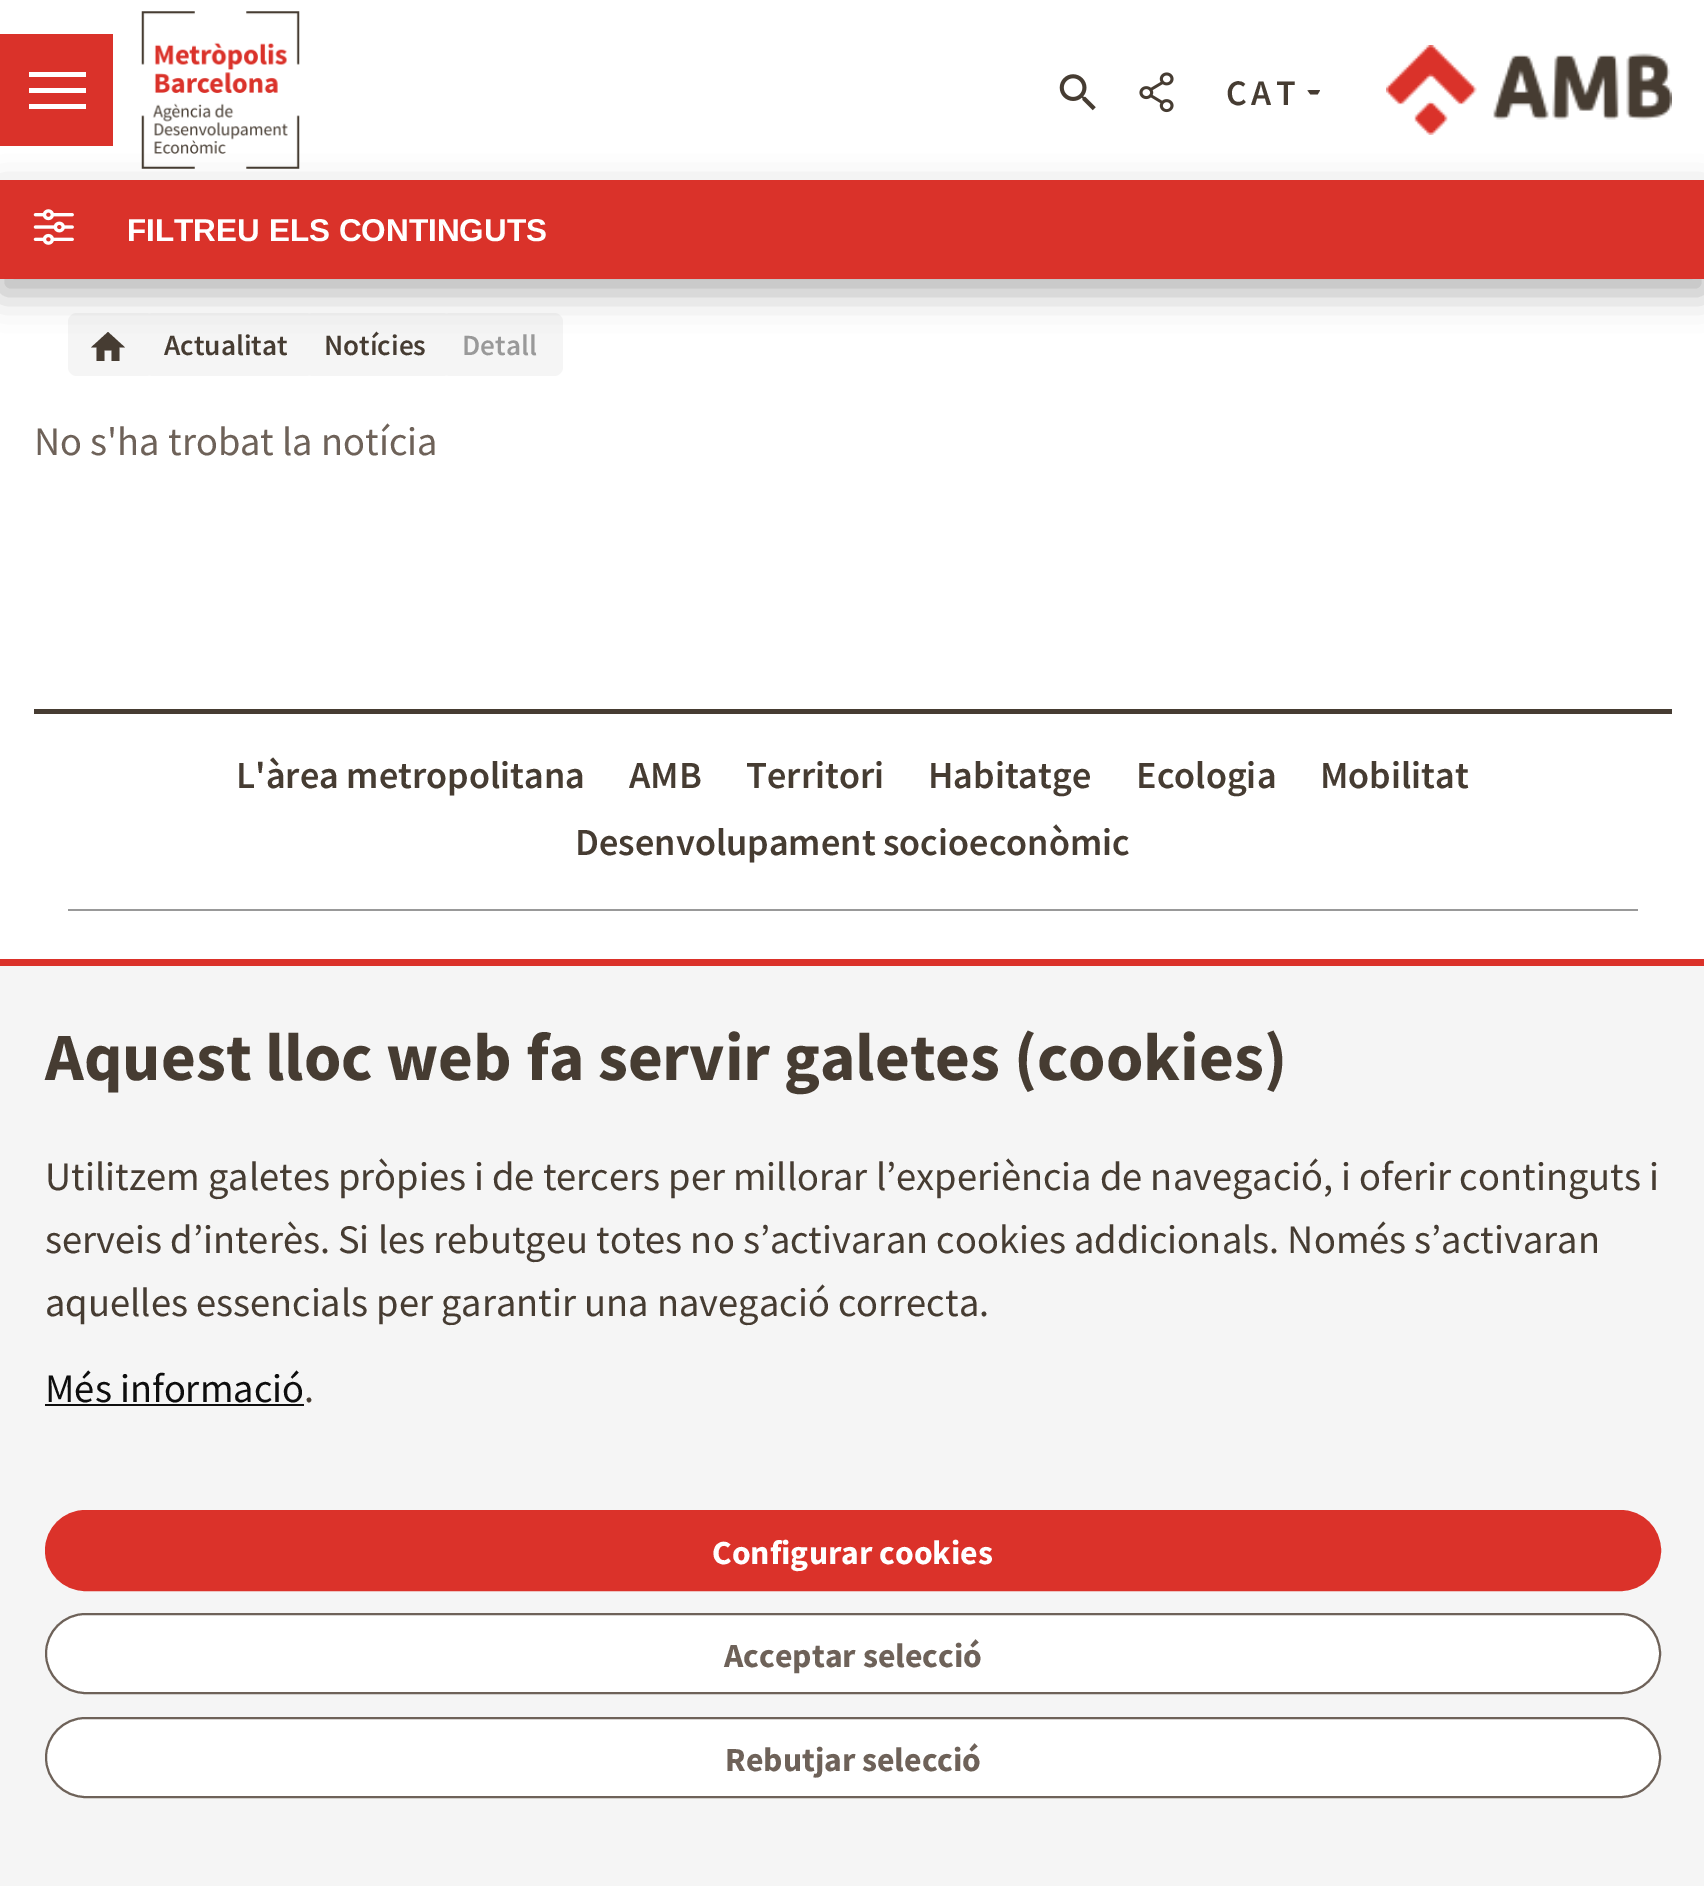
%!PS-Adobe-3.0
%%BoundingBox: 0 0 1704 1886
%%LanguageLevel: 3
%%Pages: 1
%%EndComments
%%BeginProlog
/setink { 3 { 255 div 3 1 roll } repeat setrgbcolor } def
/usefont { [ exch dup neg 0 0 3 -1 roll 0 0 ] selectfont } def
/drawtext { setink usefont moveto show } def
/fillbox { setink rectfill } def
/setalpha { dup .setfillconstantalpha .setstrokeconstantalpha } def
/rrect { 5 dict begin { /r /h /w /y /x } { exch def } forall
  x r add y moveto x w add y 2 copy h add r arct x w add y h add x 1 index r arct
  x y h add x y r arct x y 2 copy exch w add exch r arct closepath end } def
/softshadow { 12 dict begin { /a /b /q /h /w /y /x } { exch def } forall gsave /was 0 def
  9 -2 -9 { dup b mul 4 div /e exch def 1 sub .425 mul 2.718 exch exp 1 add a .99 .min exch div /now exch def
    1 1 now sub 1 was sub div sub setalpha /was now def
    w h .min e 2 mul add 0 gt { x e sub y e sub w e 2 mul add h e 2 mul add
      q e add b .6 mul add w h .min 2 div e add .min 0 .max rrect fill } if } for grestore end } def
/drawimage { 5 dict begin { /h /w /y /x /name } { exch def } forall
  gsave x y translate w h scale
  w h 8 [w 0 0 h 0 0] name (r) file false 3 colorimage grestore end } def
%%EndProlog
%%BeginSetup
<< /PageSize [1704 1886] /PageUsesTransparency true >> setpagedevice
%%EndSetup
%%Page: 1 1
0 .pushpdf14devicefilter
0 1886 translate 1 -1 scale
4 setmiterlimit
0 0 1704 1886 255 255 255 fillbox
(assets/img4.rgb) 141 11 159 158 drawimage
245 245 245 setink
68 313 87 63 9 rrect fill
70 60 50 setink
119.5 347.5 moveto 119.5 361 lineto 111.5 361 lineto 111.5 350.5 lineto 104.5 350.5 lineto 104.5 361 lineto 96.5 361 lineto 96.5 347.5 lineto 91 347.5 lineto 108 332 lineto 125 347.5 lineto closepath fill
245 245 245 setink
144 313 171 63 9 rrect fill
304 313 148 63 9 rrect fill
441 313 122 63 9 rrect fill
0 0 0 setink
0 194 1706 99 0 18 0.3 softshadow
0 34 113 112 218 50 42 fillbox
29 88 57 5 255 255 255 fillbox
29 72 57 5 255 255 255 fillbox
29 104 57 5 255 255 255 fillbox
(assets/img1.rgb) 1059 74 37 37 drawimage
(assets/img2.rgb) 1139 72 35 41 drawimage
/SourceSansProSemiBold-SemiBold 36 usefont
70 60 50 setink
1226 105 moveto 4.5 0 (CAT) ashow
1309.5 90 moveto 1307.5 90.5 lineto 1310.5 94.5 lineto 1317.5 94.5 lineto 1320 90.5 lineto 1319.5 90 lineto closepath fill
(assets/img3.rgb) 1386 45 286 90 drawimage
0 180 1704 99 218 50 42 fillbox
(assets/img5.rgb) 33 209 41 36 drawimage
(FILTREU ELS CONTINGUTS) 127 241 /LiberationSans-Bold 31.5 255 255 255 drawtext
(Actualitat) 164 355 /SourceSansProSemiBold-SemiBold 29.25 70 60 50 drawtext
(Notícies) 324 355 /SourceSansProSemiBold-SemiBold 29.25 70 60 50 drawtext
(Detall) 462 355 /SourceSansProSemiBold-SemiBold 29.25 153 153 153 drawtext
(No s'ha trobat la notícia) 34 455 /SourceSansPro-Regular 40.5 110 98 89 drawtext
34 709 1638 5 70 60 50 fillbox
(L'àrea metropolitana) 236 788 /SourceSansProSemiBold-SemiBold 38.25 70 60 50 drawtext
(AMB) 629 788 /SourceSansProSemiBold-SemiBold 38.25 70 60 50 drawtext
(Territori) 746 788 /SourceSansProSemiBold-SemiBold 38.25 70 60 50 drawtext
(Habitatge) 928 788 /SourceSansProSemiBold-SemiBold 38.25 70 60 50 drawtext
(Ecologia) 1136 788 /SourceSansProSemiBold-SemiBold 38.25 70 60 50 drawtext
(Mobilitat) 1320 788 /SourceSansProSemiBold-SemiBold 38.25 70 60 50 drawtext
(Desenvolupament socioeconòmic) 575 855 /SourceSansProSemiBold-SemiBold 38.25 70 60 50 drawtext
68 909 1570 2 153 153 153 fillbox
0 966 1704 920 245 245 245 fillbox
0 959 1704 7 219 50 42 fillbox
(Aquest lloc web fa servir galetes \(cookies\)) 45 1080 /SourceSansPro-Bold 67.5 70 60 50 drawtext
(Utilitzem galetes pròpies i de tercers per millorar l’experiència de navegació, i oferir continguts i) 45 1190 /SourceSansPro-Regular 40.5 70 60 50 drawtext
(serveis d’interès. Si les rebutgeu totes no s’activaran cookies addicionals. Només s’activaran) 45 1253 /SourceSansPro-Regular 40.5 70 60 50 drawtext
(aquelles essencials per garantir una navegació correcta.) 45 1316 /SourceSansPro-Regular 40.5 70 60 50 drawtext
(Més informació) 45 1402 /SourceSansPro-Regular 40.5 14 14 14 drawtext
45 1404 259 2 14 14 14 fillbox
(.) 304 1402 /SourceSansPro-Regular 40.5 70 60 50 drawtext
219 50 42 setink
46 1511 1614 79 39.5 rrect gsave fill grestore
2 setlinewidth
stroke
(Configurar cookies) 712 1564 /SourceSansPro-Bold 33.75 255 255 255 drawtext
46 1614 1614 79 39.5 rrect gsave fill grestore
110 98 89 setink
stroke
(Acceptar selecció) 724 1667 /SourceSansPro-Bold 33.75 110 98 89 drawtext
255 255 255 setink
46 1718 1614 79 39.5 rrect gsave fill grestore
110 98 89 setink
stroke
(Rebutjar selecció) 725 1771 /SourceSansPro-Bold 33.75 110 98 89 drawtext
.poppdf14devicefilter showpage
%%EOF
